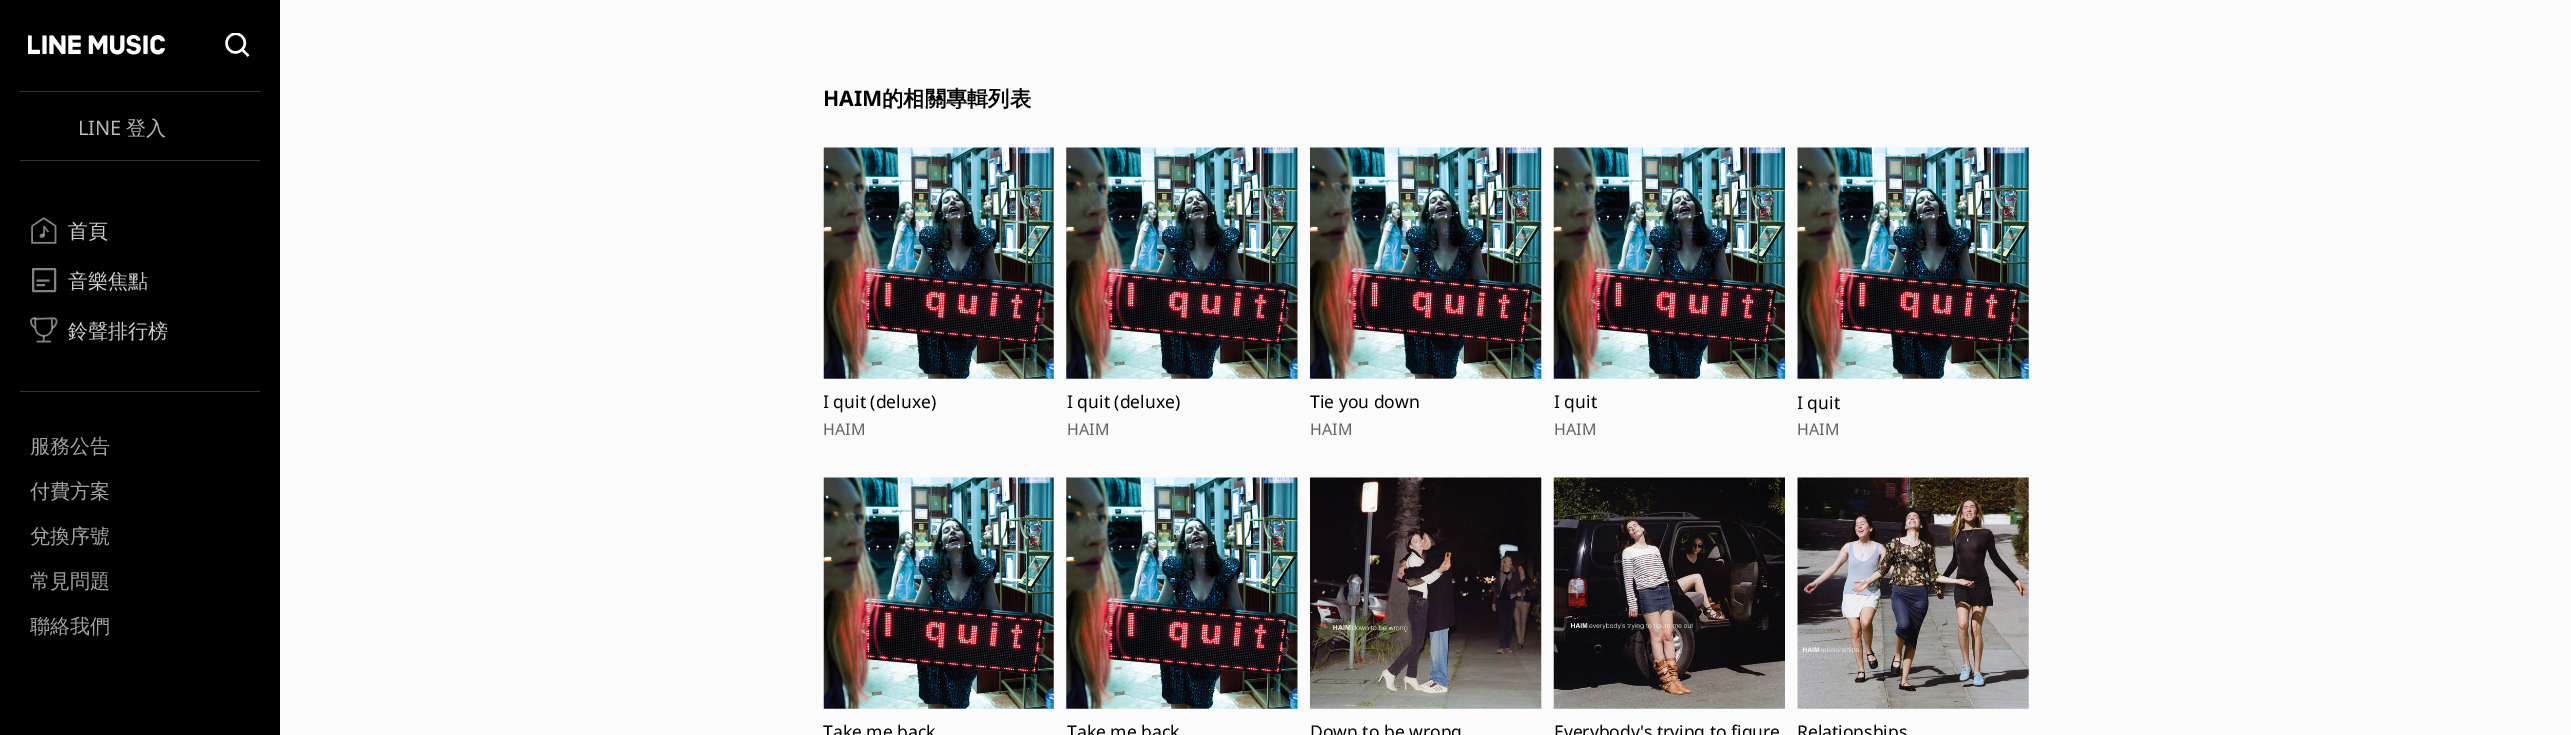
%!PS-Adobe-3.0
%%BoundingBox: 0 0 2571 735
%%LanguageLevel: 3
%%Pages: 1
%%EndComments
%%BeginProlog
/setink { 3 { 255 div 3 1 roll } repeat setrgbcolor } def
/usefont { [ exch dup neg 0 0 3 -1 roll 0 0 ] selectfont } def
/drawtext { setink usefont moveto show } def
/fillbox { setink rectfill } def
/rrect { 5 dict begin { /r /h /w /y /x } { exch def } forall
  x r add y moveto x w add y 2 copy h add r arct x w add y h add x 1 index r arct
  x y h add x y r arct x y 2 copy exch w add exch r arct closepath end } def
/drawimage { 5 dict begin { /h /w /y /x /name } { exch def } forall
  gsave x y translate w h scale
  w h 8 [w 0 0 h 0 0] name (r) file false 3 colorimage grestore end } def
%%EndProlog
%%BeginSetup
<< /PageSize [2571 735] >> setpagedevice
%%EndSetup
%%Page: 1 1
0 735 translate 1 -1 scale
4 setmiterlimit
0 0 2571 735 251 251 251 fillbox
0 0 280 735 0 0 0 fillbox
(assets/img1.rgb) 28 35 137 20 drawimage
gsave
225 33 25 25 rectclip
255 255 255 setink
2.4 setlinewidth
242 36.5 moveto 251 45.5 237 58.5 229 49.5 curveto 221 40.5 233.5 28 242 36.5 curveto closepath 242 49.5 moveto 248.5 56 lineto stroke
grestore
20 91 240 1 51 51 51 fillbox
20 160 240 1 51 51 51 fillbox
(LINE) 78 135 /NotoSans-Regular 20 186 186 186 drawtext
(登入) 126 135 /WenQuanYiZenHei-Medium 20 186 186 186 drawtext
20 391 240 1 51 51 51 fillbox
(assets/img2.rgb) 31 217 26 27 drawimage
(首頁) 68 238 /WenQuanYiZenHei-Medium 20 204 204 204 drawtext
130 130 130 setink
2 setlinewidth
33 269 22 22 0.5 rrect stroke
1.9 setlinewidth
36.5 280.5 moveto 49.5 280.5 lineto 36.5 285 moveto 45 285 lineto stroke
(音樂焦點) 68 288 /WenQuanYiZenHei-Medium 20 204 204 204 drawtext
(assets/img3.rgb) 30 317 28 26 drawimage
(鈴聲排行榜) 68 338 /WenQuanYiZenHei-Medium 20 204 204 204 drawtext
(服務公告) 30 453 /WenQuanYiZenHei-Medium 20 163 163 163 drawtext
(付費方案) 30 498 /WenQuanYiZenHei-Medium 20 163 163 163 drawtext
(兌換序號) 30 543 /WenQuanYiZenHei-Medium 20 163 163 163 drawtext
(常見問題) 30 588 /WenQuanYiZenHei-Medium 20 163 163 163 drawtext
(聯絡我們) 30 633 /WenQuanYiZenHei-Medium 20 163 163 163 drawtext
(HAIM) 823 106 /NotoSans-Bold 21.25 0 0 0 drawtext
(的相關專輯列表) 882 106 /WenQuanYiZenHei-Bold 21.25 0 0 0 drawtext
(assets/img4.rgb) 823 147 231 232 drawimage
gsave
824 391 230 22 rectclip
(I quit \(deluxe\)) 823 408 /NotoSans-Regular 17.5 0 0 0 drawtext
grestore
(HAIM) 823 435 /NotoSans-Regular 16 102 102 102 drawtext
(assets/img5.rgb) 1066 147 232 232 drawimage
(I quit \(deluxe\)) 1067 408 /NotoSans-Regular 17.5 0 0 0 drawtext
(HAIM) 1067 435 /NotoSans-Regular 16 102 102 102 drawtext
(assets/img6.rgb) 1310 147 232 232 drawimage
(Tie you down) 1310 408 /NotoSans-Regular 17.5 0 0 0 drawtext
(HAIM) 1310 435 /NotoSans-Regular 16 102 102 102 drawtext
(assets/img7.rgb) 1553 147 232 232 drawimage
(I quit) 1554 408 /NotoSans-Regular 17.5 0 0 0 drawtext
(HAIM) 1554 435 /NotoSans-Regular 16 102 102 102 drawtext
(assets/img8.rgb) 1797 147 232 232 drawimage
gsave
1798 391 231 22 rectclip
(I quit) 1797 409 /NotoSans-Regular 17.5 0 0 0 drawtext
grestore
(HAIM) 1797 435 /NotoSans-Regular 16 102 102 102 drawtext
(assets/img9.rgb) 823 477 231 232 drawimage
(Take me back) 823 738 /NotoSans-Regular 17.5 0 0 0 drawtext
(assets/img5.rgb) 1066 477 232 232 drawimage
(Take me back) 1067 738 /NotoSans-Regular 17.5 0 0 0 drawtext
(assets/img10.rgb) 1310 477 232 232 drawimage
(Down to be wrong) 1310 738 /NotoSans-Regular 17.5 0 0 0 drawtext
(assets/img11.rgb) 1553 477 232 232 drawimage
(Everybody's trying to figure) 1554 738 /NotoSans-Regular 17.5 0 0 0 drawtext
(assets/img12.rgb) 1797 477 232 232 drawimage
(Relationships) 1797 738 /NotoSans-Regular 17.5 0 0 0 drawtext
showpage
%%EOF
